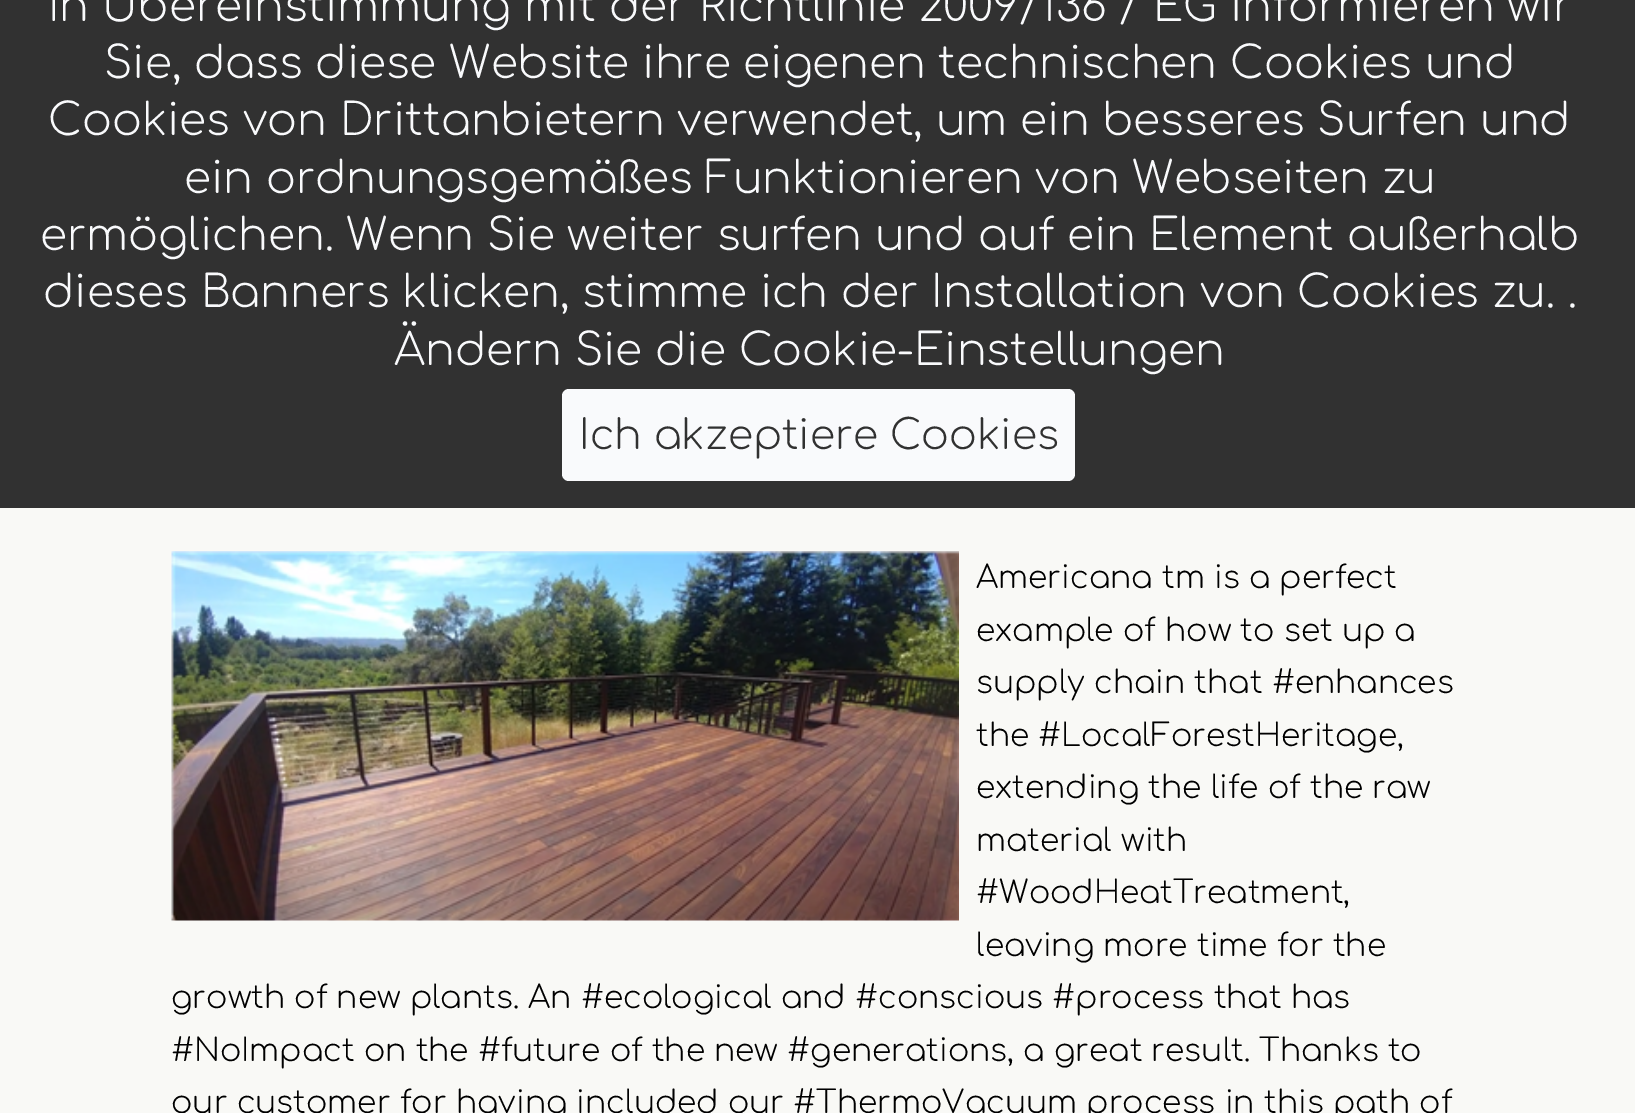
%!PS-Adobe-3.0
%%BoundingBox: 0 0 1635 1113
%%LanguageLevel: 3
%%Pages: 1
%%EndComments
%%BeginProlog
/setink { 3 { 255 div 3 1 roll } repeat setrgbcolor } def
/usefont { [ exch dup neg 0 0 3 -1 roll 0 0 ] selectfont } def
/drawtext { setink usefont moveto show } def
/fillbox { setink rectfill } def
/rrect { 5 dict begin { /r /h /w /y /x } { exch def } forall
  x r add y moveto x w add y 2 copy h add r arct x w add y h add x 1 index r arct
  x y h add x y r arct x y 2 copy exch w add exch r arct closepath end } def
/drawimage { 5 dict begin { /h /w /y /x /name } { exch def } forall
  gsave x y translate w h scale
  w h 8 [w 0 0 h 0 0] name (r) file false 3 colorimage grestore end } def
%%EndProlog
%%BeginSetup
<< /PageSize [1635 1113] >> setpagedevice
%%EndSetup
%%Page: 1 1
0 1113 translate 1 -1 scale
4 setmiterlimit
0 0 1635 1113 249 249 246 fillbox
0 0 1635 508 49 49 49 fillbox
(In Übereinstimmung mit der Richtlinie 2009/136 / EG informieren wir) 48 21 /Comfortaa-Light 44.1 249 250 252 drawtext
(Sie, dass diese Website ihre eigenen technischen Cookies und) 104 78 /Comfortaa-Light 44.1 249 250 252 drawtext
(Cookies von Drittanbietern verwendet, um ein besseres Surfen und) 48 135 /Comfortaa-Light 44.1 249 250 252 drawtext
(ein ordnungsgemäßes Funktionieren von Webseiten zu) 184 193 /Comfortaa-Light 44.1 249 250 252 drawtext
(ermöglichen. Wenn Sie weiter surfen und auf ein Element außerhalb) 40 250 /Comfortaa-Light 44.1 249 250 252 drawtext
(dieses Banners klicken, stimme ich der Installation von Cookies zu. .) 43 307 /Comfortaa-Light 44.1 249 250 252 drawtext
(Ändern Sie die Cookie-Einstellungen) 394 365 /Comfortaa-Light 44.1 249 250 252 drawtext
562 389 513 92 7 rrect fill
(Ich akzeptiere Cookies) 579 449 /Comfortaa-Light 41 49 49 49 drawtext
(assets/img1.rgb) 171 551 788 370 drawimage
(Americana tm is a perfect) 976 588 /Comfortaa-Light 31.5 0 0 0 drawtext
(example of how to set up a) 976 641 /Comfortaa-Light 31.5 0 0 0 drawtext
(supply chain that #enhances) 976 693 /Comfortaa-Light 31.5 0 0 0 drawtext
(the #LocalForestHeritage,) 976 746 /Comfortaa-Light 31.5 0 0 0 drawtext
(extending the life of the raw) 976 798 /Comfortaa-Light 31.5 0 0 0 drawtext
(material with) 976 851 /Comfortaa-Light 31.5 0 0 0 drawtext
(#WoodHeatTreatment,) 976 903 /Comfortaa-Light 31.5 0 0 0 drawtext
(leaving more time for the) 976 956 /Comfortaa-Light 31.5 0 0 0 drawtext
(growth of new plants. An #ecological and #conscious #process that has) 171 1008 /Comfortaa-Light 31.5 0 0 0 drawtext
(#NoImpact on the #future of the new #generations, a great result. Thanks to) 171 1061 /Comfortaa-Light 31.5 0 0 0 drawtext
(our customer for having included our #ThermoVacuum process in this path of) 171 1113 /Comfortaa-Light 31.5 0 0 0 drawtext
showpage
%%EOF
